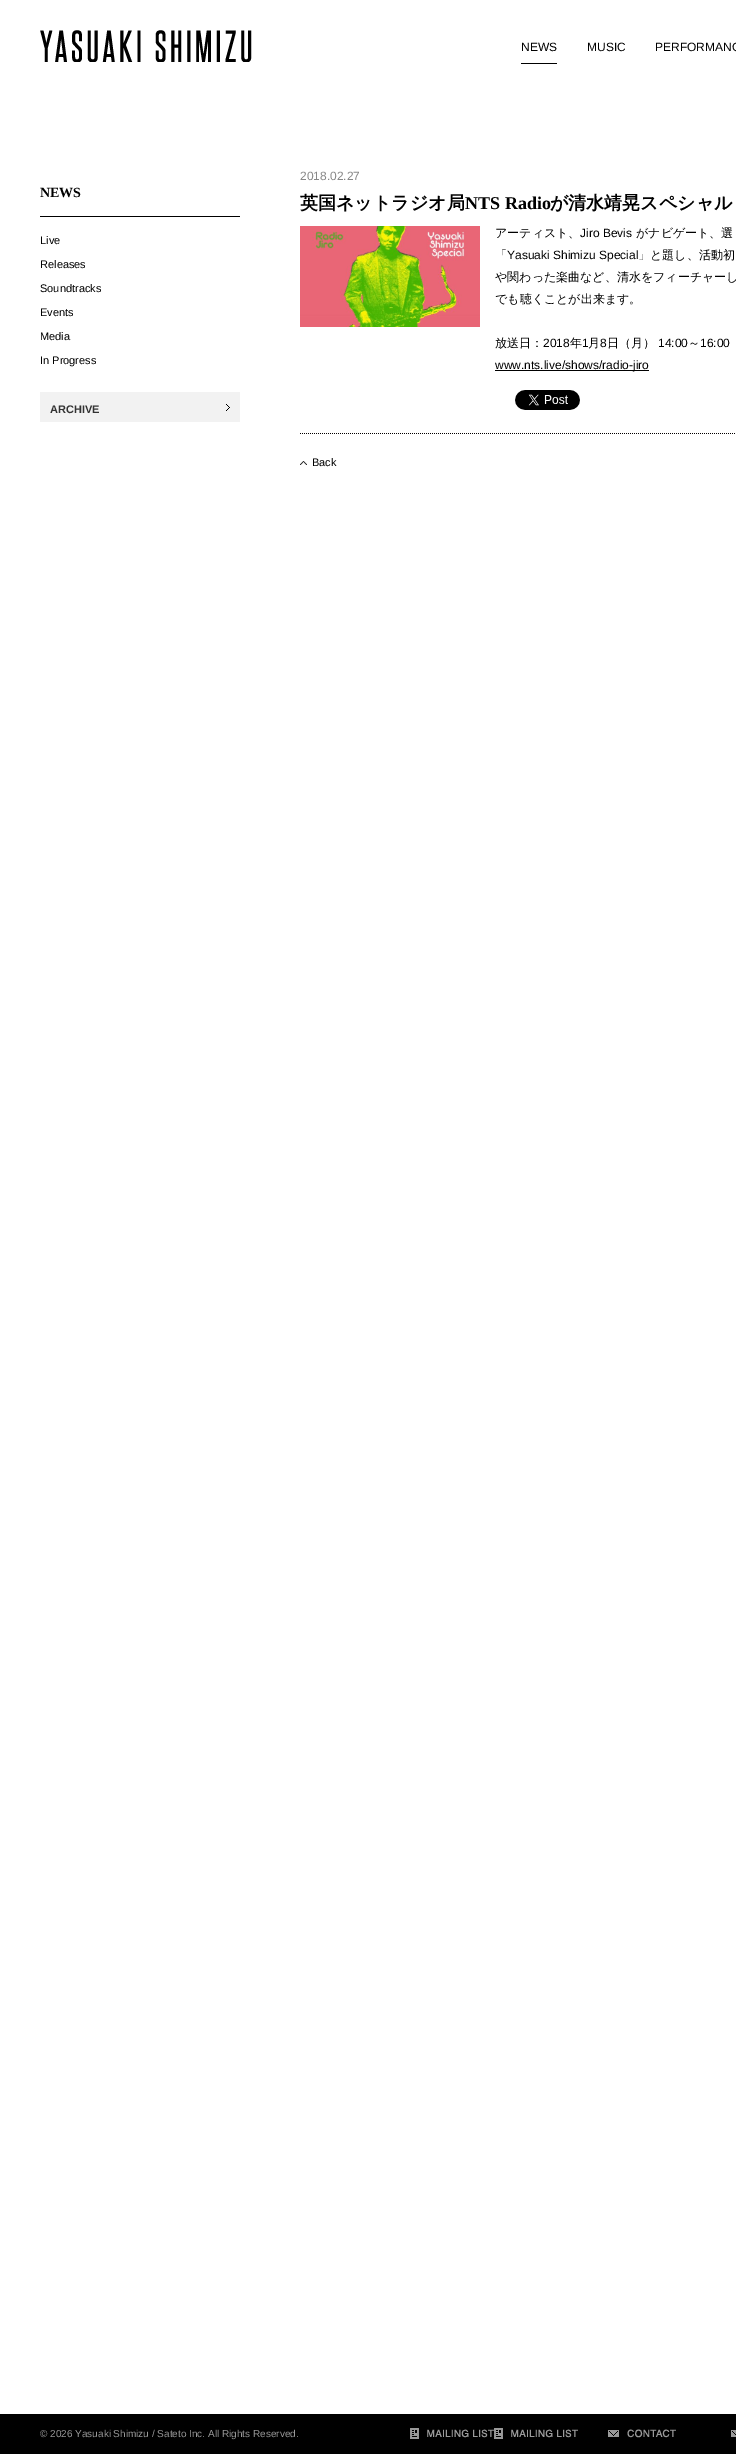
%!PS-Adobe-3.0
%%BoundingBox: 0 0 736 2454
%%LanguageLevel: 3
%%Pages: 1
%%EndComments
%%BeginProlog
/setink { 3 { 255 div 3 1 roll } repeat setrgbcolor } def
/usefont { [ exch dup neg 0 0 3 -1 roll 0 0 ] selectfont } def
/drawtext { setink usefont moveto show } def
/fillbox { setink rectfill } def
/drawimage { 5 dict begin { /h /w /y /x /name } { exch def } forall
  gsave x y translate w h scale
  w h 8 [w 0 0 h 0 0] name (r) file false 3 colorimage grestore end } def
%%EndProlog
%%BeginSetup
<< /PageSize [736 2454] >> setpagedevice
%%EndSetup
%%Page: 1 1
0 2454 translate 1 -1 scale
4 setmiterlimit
0 0 736 2454 255 255 255 fillbox
(assets/img1.rgb) 40 30 212 32 drawimage
(NEWS) 521 51 /LiberationSans-Regular 12 0 0 0 drawtext
521 63 36 1 0 0 0 fillbox
(MUSIC) 587 51 /LiberationSans-Regular 12 0 0 0 drawtext
(PERFORMANC) 655 51 /LiberationSans-Regular 12 0 0 0 drawtext
(NEWS) 40 197 /LiberationSerif-Bold 14 0 0 0 drawtext
40 216 200 1 0 0 0 fillbox
(Live) 40 244 /LiberationSans-Regular 11 0 0 0 drawtext
(Releases) 40 268 /LiberationSans-Regular 11 0 0 0 drawtext
(Soundtracks) 40 292 /LiberationSans-Regular 11 0 0 0 drawtext
(Events) 40 316 /LiberationSans-Regular 11 0 0 0 drawtext
(Media) 40 340 /LiberationSans-Regular 11 0 0 0 drawtext
(In Progress) 40 364 /LiberationSans-Regular 11 0 0 0 drawtext
40 392 200 30 242 242 242 fillbox
(assets/img2.rgb) 226 404 4 7 drawimage
(ARCHIVE) 50 413 /LiberationSans-Bold 11 51 51 51 drawtext
(2018.02.27) 300 180 /LiberationSans-Regular 12 136 136 136 drawtext
(英国ネットラジオ局) 300 209 /WenQuanYiZenHei-Bold 18 0 0 0 drawtext
(NTS Radio) 465 209 /LiberationSerif-Bold 18 0 0 0 drawtext
(が清水靖晃スペシャル) 550 209 /WenQuanYiZenHei-Bold 18 0 0 0 drawtext
(assets/img3.rgb) 300 226 180 101 drawimage
(アーティスト、) 495 237 /WenQuanYiZenHei-Medium 12 0 0 0 drawtext
(Jiro Bevis) 580 237 /LiberationSans-Regular 12 0 0 0 drawtext
(がナビゲート、選) 636 237 /WenQuanYiZenHei-Medium 12 0 0 0 drawtext
(「) 495 259 /WenQuanYiZenHei-Medium 12 0 0 0 drawtext
(Yasuaki Shimizu Special) 507 259 /LiberationSans-Regular 12 0 0 0 drawtext
(」と題し、活動初) 638 259 /WenQuanYiZenHei-Medium 12 0 0 0 drawtext
(や関わった楽曲など、清水をフィーチャーし) 495 281 /WenQuanYiZenHei-Medium 12 0 0 0 drawtext
(でも聴くことが出来ます。) 495 303 /WenQuanYiZenHei-Medium 12 0 0 0 drawtext
(放送日：) 495 347 /WenQuanYiZenHei-Medium 12 0 0 0 drawtext
(2018) 543 347 /LiberationSans-Regular 12 0 0 0 drawtext
(年) 570 347 /WenQuanYiZenHei-Medium 12 0 0 0 drawtext
(1) 582 347 /LiberationSans-Regular 12 0 0 0 drawtext
(月) 588 347 /WenQuanYiZenHei-Medium 12 0 0 0 drawtext
(8) 600 347 /LiberationSans-Regular 12 0 0 0 drawtext
(日（月）) 607 347 /WenQuanYiZenHei-Medium 12 0 0 0 drawtext
(14:00) 658 347 /LiberationSans-Regular 12 0 0 0 drawtext
(～) 688 347 /WenQuanYiZenHei-Medium 12 0 0 0 drawtext
(16:00) 700 347 /LiberationSans-Regular 12 0 0 0 drawtext
495 370 154 1 0 0 0 fillbox
(www.nts.live/shows/radio-jiro) 495 369 /LiberationSans-Regular 12 0 0 0 drawtext
(assets/img4.rgb) 515 390 65 20 drawimage
(assets/img5.rgb) 300 433 435 1 drawimage
(assets/img6.rgb) 300 461 7 4 drawimage
(Back) 312 466 /LiberationSans-Regular 11 0 0 0 drawtext
0 2414 736 40 0 0 0 fillbox
(© 2026 Yasuaki Shimizu / Sateto Inc. All Rights Reserved.) 40 2437 /LiberationSans-Regular 10 153 153 153 drawtext
(assets/img7.rgb) 410 2428 84 11 drawimage
(assets/img7.rgb) 494 2428 84 11 drawimage
(assets/img8.rgb) 608 2429 68 9 drawimage
(assets/img9.rgb) 731 2430 5 7 drawimage
showpage
%%EOF
